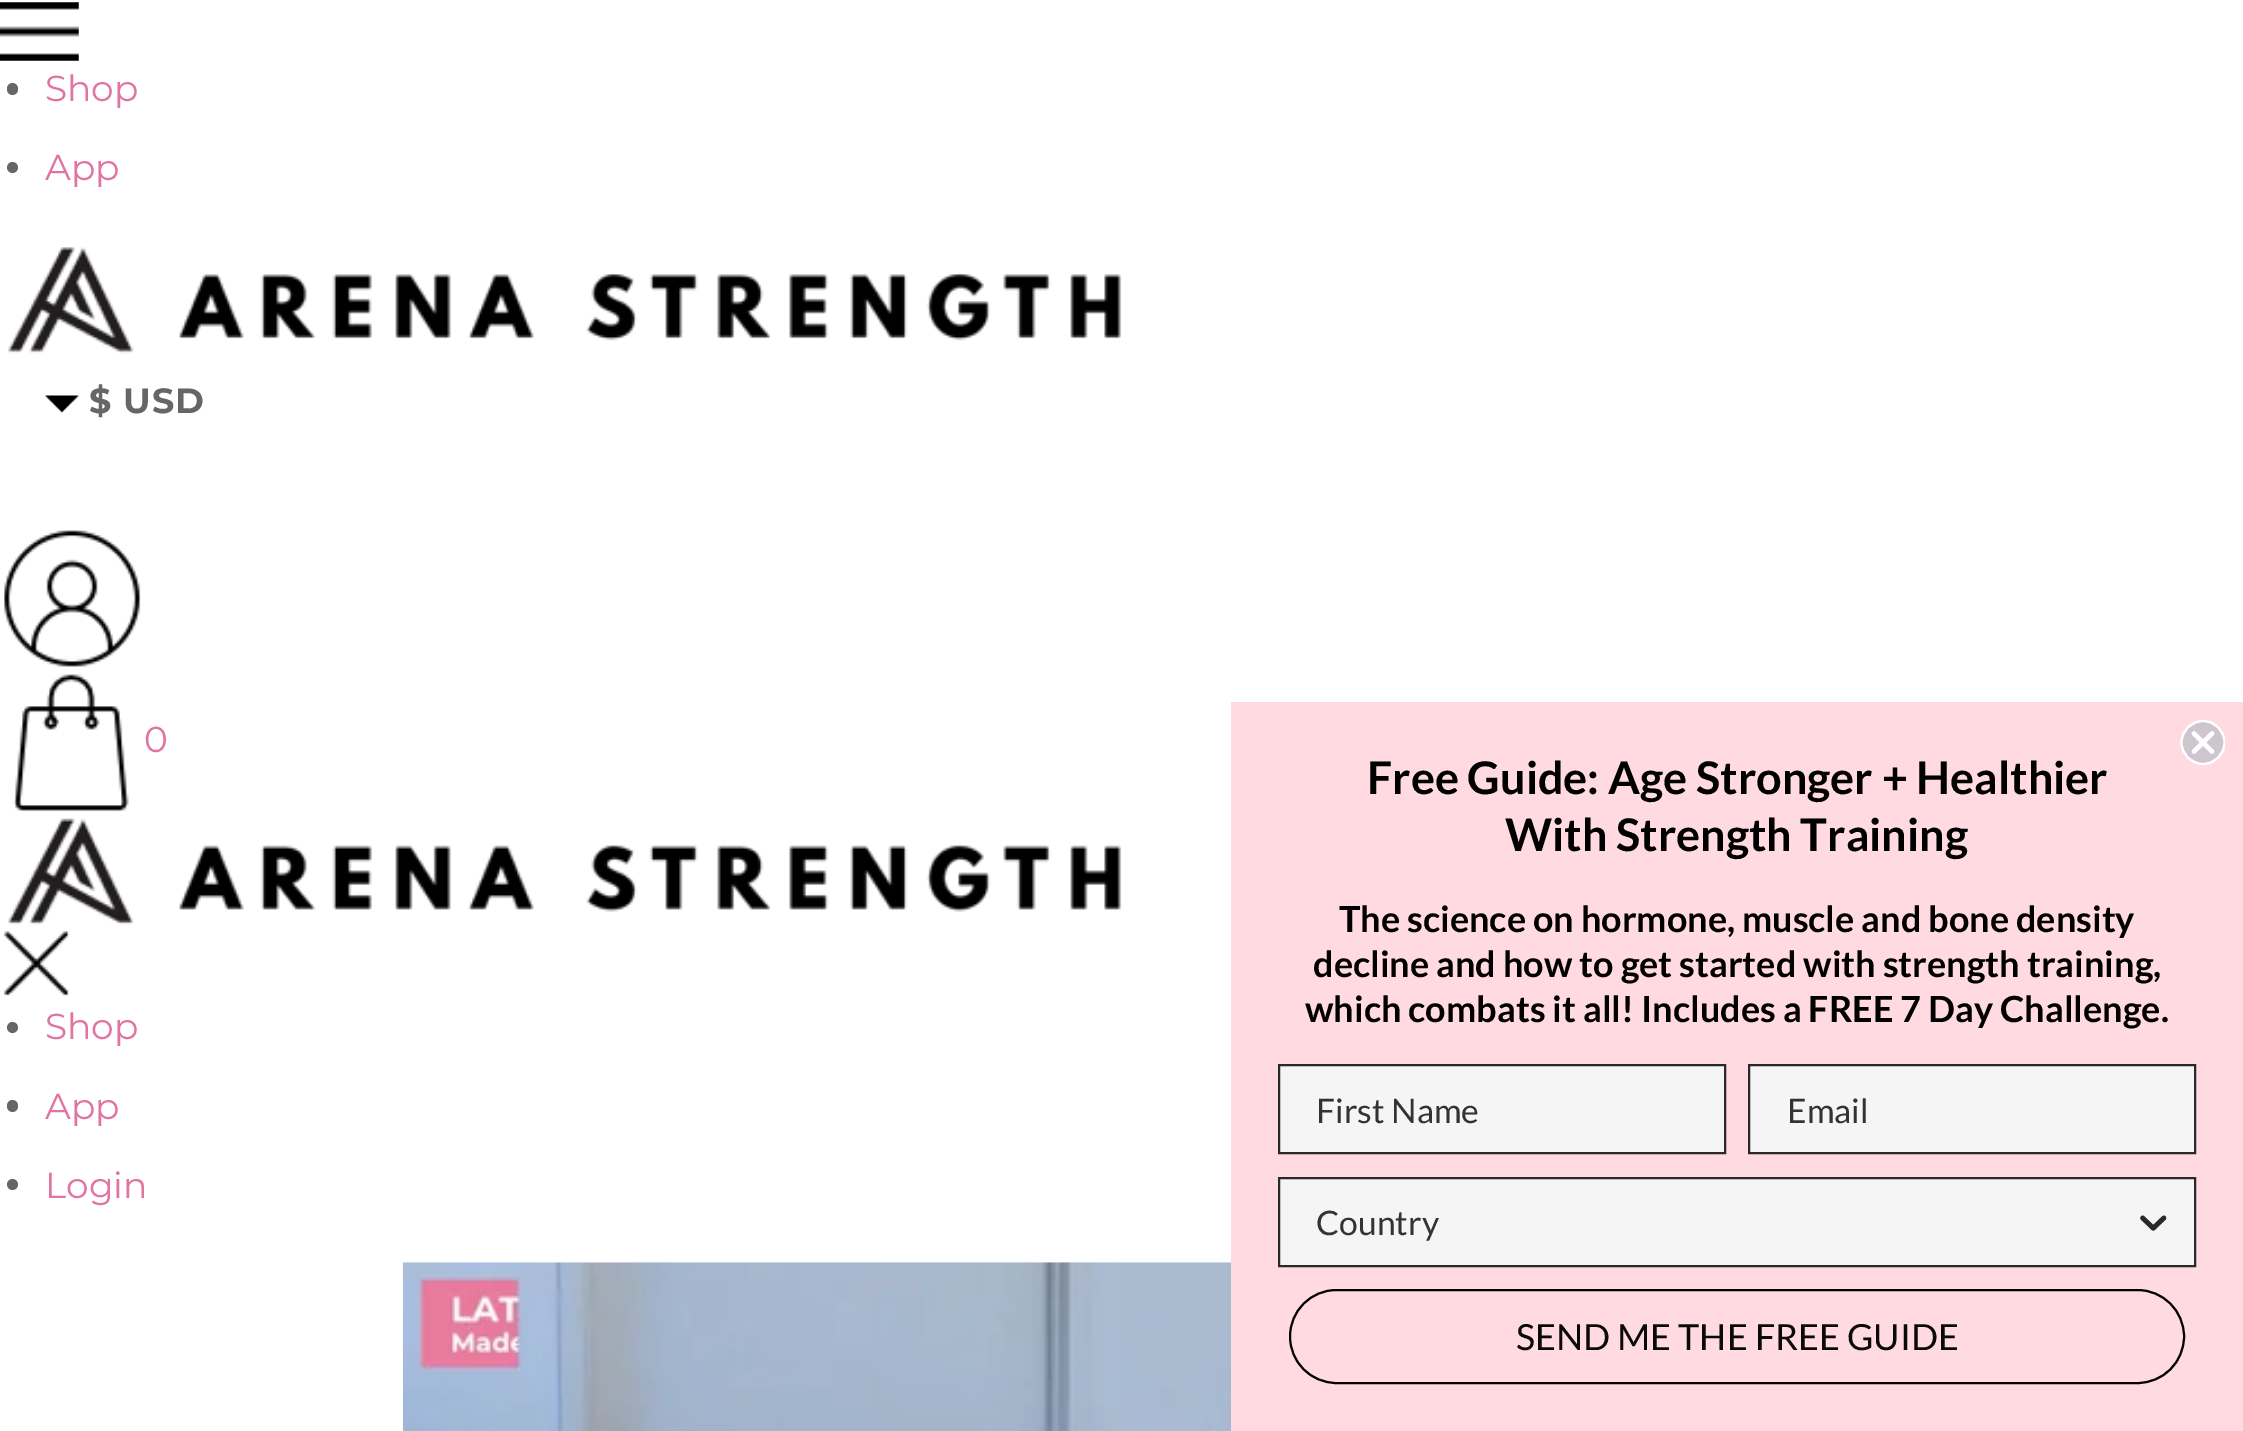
%!PS-Adobe-3.0
%%BoundingBox: 0 0 2243 1431
%%LanguageLevel: 3
%%Pages: 1
%%EndComments
%%BeginProlog
/setink { 3 { 255 div 3 1 roll } repeat setrgbcolor } def
/usefont { [ exch dup neg 0 0 3 -1 roll 0 0 ] selectfont } def
/drawtext { setink usefont moveto show } def
/fillbox { setink rectfill } def
/disc { newpath 0 360 arc closepath } def
/rrect { 5 dict begin { /r /h /w /y /x } { exch def } forall
  x r add y moveto x w add y 2 copy h add r arct x w add y h add x 1 index r arct
  x y h add x y r arct x y 2 copy exch w add exch r arct closepath end } def
/drawimage { 5 dict begin { /h /w /y /x /name } { exch def } forall
  gsave x y translate w h scale
  w h 8 [w 0 0 h 0 0] name (r) file false 3 colorimage grestore end } def
%%EndProlog
%%BeginSetup
<< /PageSize [2243 1431] >> setpagedevice
%%EndSetup
%%Page: 1 1
0 1431 translate 1 -1 scale
4 setmiterlimit
0 0 2243 1431 255 255 255 fillbox
(assets/img1.rgb) 0 2 79 59 drawimage
102 102 102 setink
7 83 11 12 5.5 rrect fill
(Shop) 45 101 /Montserrat-Regular 36 225 116 161 drawtext
102 102 102 setink
12.5 167.5 5.5 disc fill
(App) 45 180 /Montserrat-Regular 36 225 116 161 drawtext
(assets/img2.rgb) 8 247 1114 107 drawimage
(assets/img3.rgb) 45 395 34 18 drawimage
/Montserrat-Bold 35 usefont
102 102 102 setink
89 413 moveto 1 0 ($ USD) ashow
(assets/img4.rgb) 4 530 137 137 drawimage
(assets/img5.rgb) 13 674 116 138 drawimage
(0) 144 752 /Montserrat-Regular 36 225 116 161 drawtext
(assets/img6.rgb) 8 818 1114 107 drawimage
(assets/img7.rgb) 4 931 66 66 drawimage
102 102 102 setink
12.5 1027.5 5.5 disc fill
(Shop) 45 1039 /Montserrat-Regular 36 225 116 161 drawtext
102 102 102 setink
7 1100 11 12 5.5 rrect fill
(App) 45 1119 /Montserrat-Regular 36 225 116 161 drawtext
102 102 102 setink
12.5 1184.5 5.5 disc fill
(Login) 45 1198 /Montserrat-Regular 36 225 116 161 drawtext
1231 702 1012 729 255 218 225 fillbox
206 198 206 setink
2203 742.5 21.5 disc fill
gsave
2180 720 45 45 rectclip
255 255 255 setink
2.2 setlinewidth
2203 742.5 21.5 disc stroke
grestore
255 255 255 setink
4.5 setlinewidth
1 setlinecap
1 setlinejoin
2194 733.5 moveto 2212 751.5 lineto 2194 751.5 moveto 2212 733.5 lineto closepath stroke
(Free Guide: Age Stronger + Healthier) 1367 794 /Lato-Bold 45 0 0 0 drawtext
(With Strength Training) 1505 851 /Lato-Bold 45 0 0 0 drawtext
(The science on hormone, muscle and bone density) 1339 932 /Lato-Bold 36 0 0 0 drawtext
(decline and how to get started with strength training,) 1313 977 /Lato-Bold 36 0 0 0 drawtext
(which combats it all! Includes a FREE 7 Day Challenge.) 1305 1022 /Lato-Bold 36 0 0 0 drawtext
245 245 245 setink
1279 1065 moveto 1725 1065 lineto 1725 1153 lineto 1279 1153 lineto closepath gsave fill grestore
41 41 41 setink
2 setlinewidth
0 setlinecap
0 setlinejoin
stroke
(First Name) 1316 1123 /Lato-Regular 33.75 51 51 51 drawtext
245 245 245 setink
1749 1065 moveto 2195 1065 lineto 2195 1153 lineto 1749 1153 lineto closepath gsave fill grestore
41 41 41 setink
stroke
(Email) 1787 1123 /Lato-Regular 33.75 51 51 51 drawtext
245 245 245 setink
1279 1178 moveto 2195 1178 lineto 2195 1266 lineto 1279 1266 lineto closepath gsave fill grestore
41 41 41 setink
stroke
(Country) 1316 1235 /Lato-Regular 33.75 51 51 51 drawtext
(assets/img8.rgb) 2140 1215 27 16 drawimage
0 0 0 setink
1290 1290 894 93 46.5 rrect stroke
(SEND ME THE FREE GUIDE) 1516 1350 /Lato-Regular 36 10 10 10 drawtext
(assets/img9.rgb) 402 1262 829 169 drawimage
showpage
%%EOF
